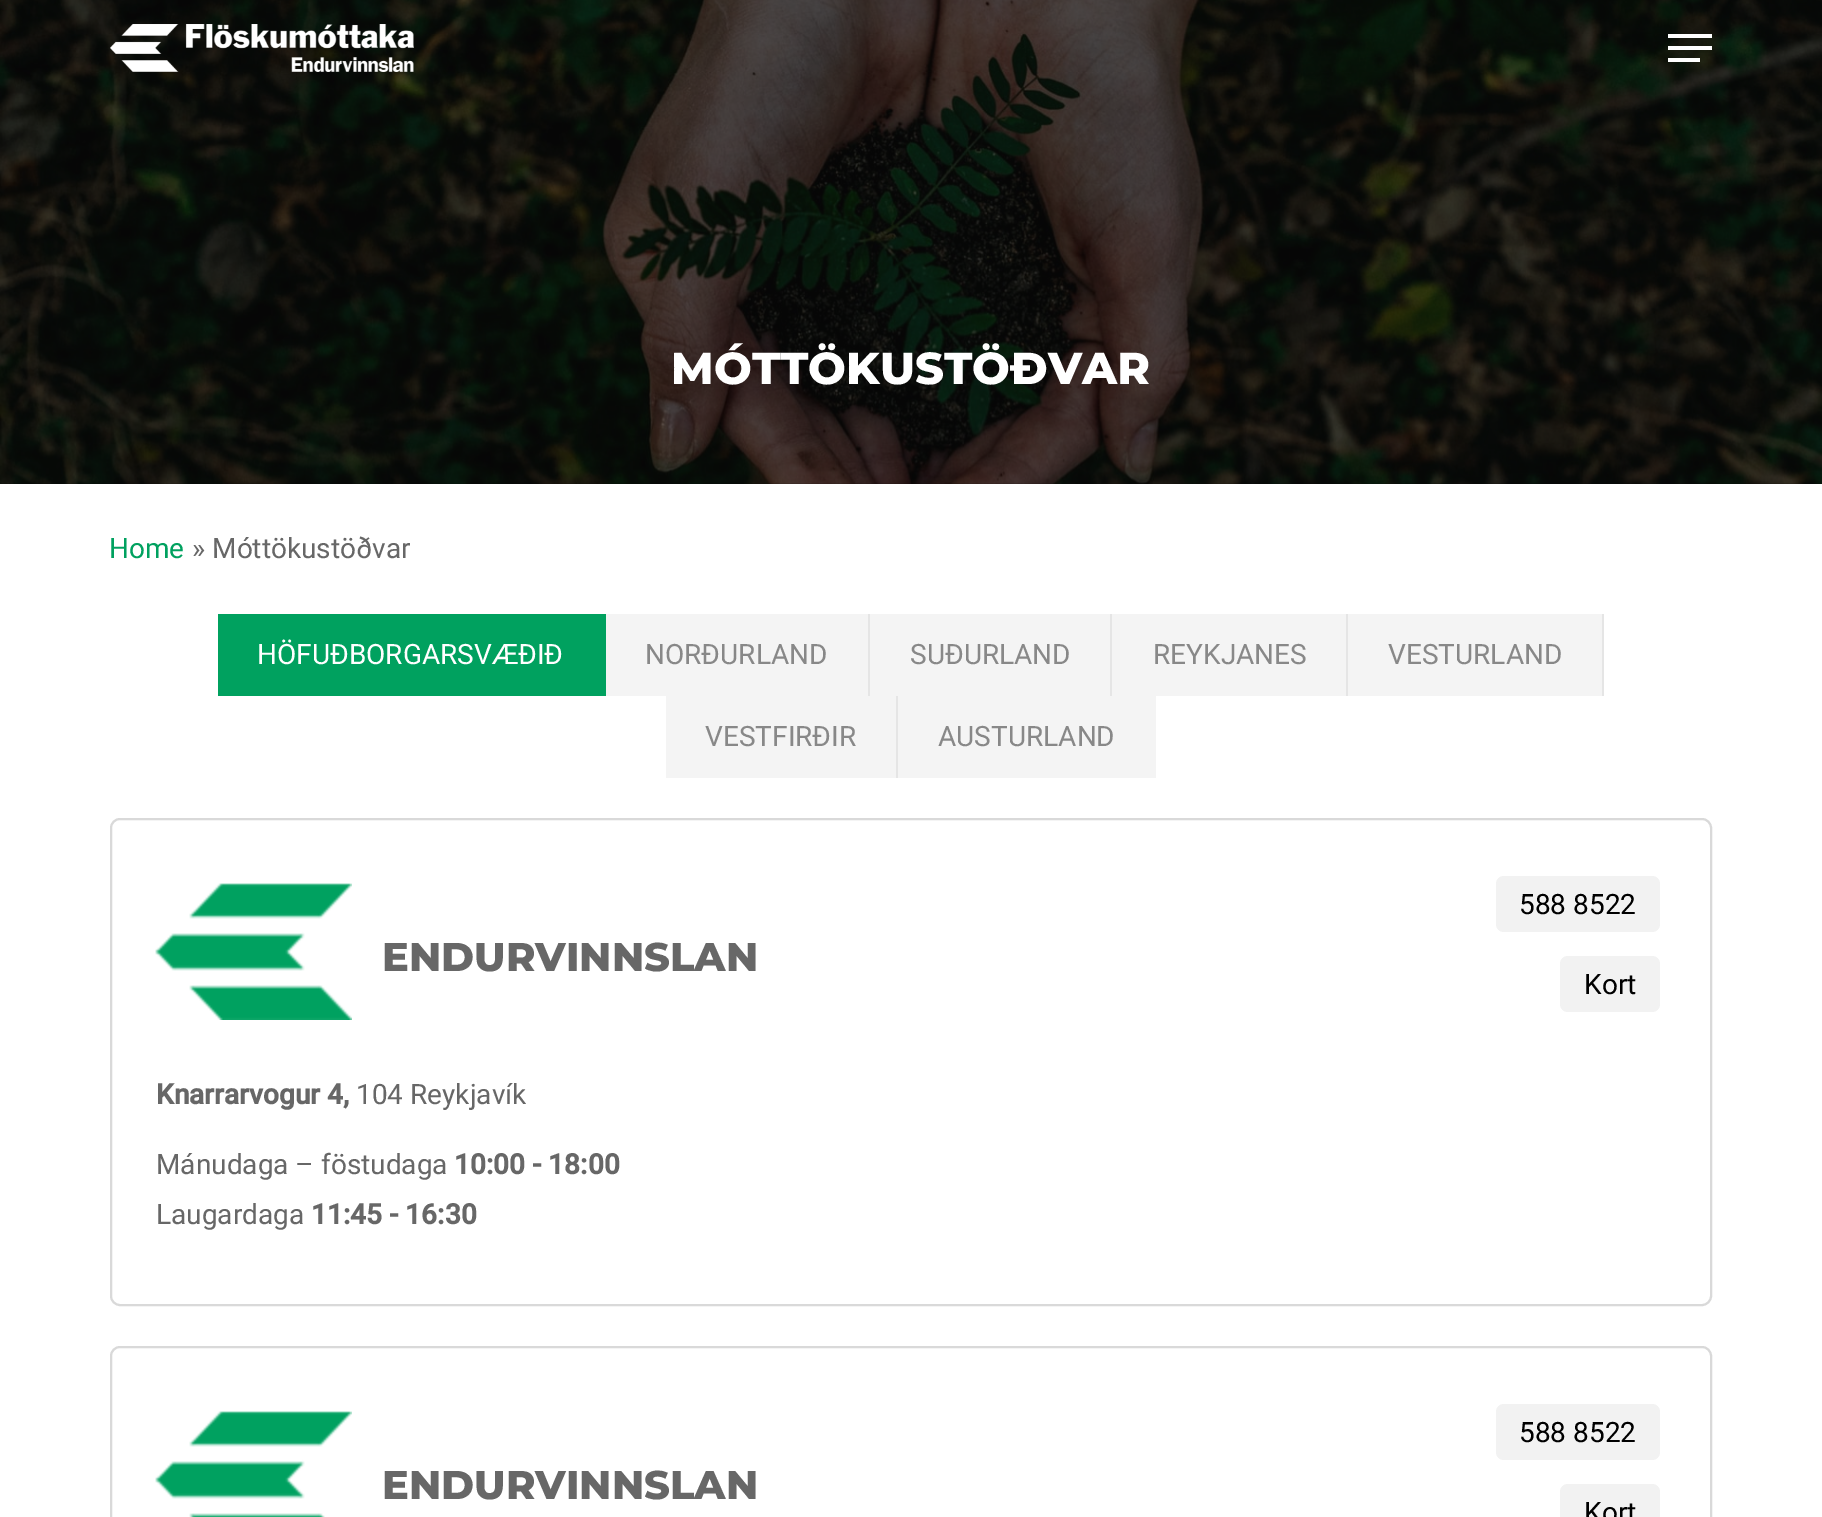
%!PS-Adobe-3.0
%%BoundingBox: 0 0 1822 1517
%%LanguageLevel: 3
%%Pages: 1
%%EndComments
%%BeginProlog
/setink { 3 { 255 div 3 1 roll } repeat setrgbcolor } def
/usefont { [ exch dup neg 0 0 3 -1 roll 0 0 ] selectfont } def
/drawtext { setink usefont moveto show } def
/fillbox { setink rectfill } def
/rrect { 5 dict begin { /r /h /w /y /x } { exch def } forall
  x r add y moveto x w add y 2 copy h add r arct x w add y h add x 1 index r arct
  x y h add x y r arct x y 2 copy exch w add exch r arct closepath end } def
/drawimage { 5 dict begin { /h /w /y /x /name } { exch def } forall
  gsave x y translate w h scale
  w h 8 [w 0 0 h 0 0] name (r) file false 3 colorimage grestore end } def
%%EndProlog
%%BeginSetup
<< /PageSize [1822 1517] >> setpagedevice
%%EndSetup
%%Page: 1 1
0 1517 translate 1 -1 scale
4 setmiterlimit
0 0 1822 1517 255 255 255 fillbox
(assets/img2.rgb) 0 0 1822 484 drawimage
(assets/img1.rgb) 110 24 304 48 drawimage
1668 34 44 4 255 255 255 fillbox
1668 58 32 4 255 255 255 fillbox
1668 46 44 4 255 255 255 fillbox
(MÓTTÖKUSTÖÐVAR) 671 384 /Montserrat-Thin 44.75 255 255 255 drawtext
(Home) 109 558 /Roboto-Regular 28 0 161 95 drawtext
(» Móttökustöðvar) 192 558 /Roboto-Regular 28 103 103 103 drawtext
218 614 388 82 0 161 95 fillbox
(HÖFUÐBORGARSVÆÐIÐ) 257 664 /Roboto-Regular 28 255 255 255 drawtext
606 614 262 82 244 244 244 fillbox
868 614 2 82 229 229 229 fillbox
(NORÐURLAND) 645 664 /Roboto-Regular 28 136 136 136 drawtext
870 614 240 82 244 244 244 fillbox
1110 614 2 82 229 229 229 fillbox
(SUÐURLAND) 910 664 /Roboto-Regular 28 136 136 136 drawtext
1112 614 234 82 244 244 244 fillbox
1346 614 2 82 229 229 229 fillbox
(REYKJANES) 1153 664 /Roboto-Regular 28 136 136 136 drawtext
1348 614 254 82 244 244 244 fillbox
1602 614 2 82 229 229 229 fillbox
(VESTURLAND) 1388 664 /Roboto-Regular 28 136 136 136 drawtext
666 696 230 82 244 244 244 fillbox
896 696 2 82 229 229 229 fillbox
(VESTFIRÐIR) 705 746 /Roboto-Regular 28 136 136 136 drawtext
898 696 258 82 244 244 244 fillbox
(AUSTURLAND) 938 746 /Roboto-Regular 28 136 136 136 drawtext
217 217 217 setink
2 setlinewidth
111 819 1600 486 9 rrect stroke
(assets/img3.rgb) 155 883 197 137 drawimage
(ENDURVINNSLAN) 382 971 /Montserrat-Thin 40 103 103 103 drawtext
242 242 242 setink
1496 876 164 56 8 rrect fill
(588 8522) 1519 914 /Roboto-Regular 28 0 0 0 drawtext
242 242 242 setink
1560 956 100 56 8 rrect fill
(Kort) 1584 994 /Roboto-Regular 28 0 0 0 drawtext
(Knarrarvogur 4,) 156 1104 /Roboto-Bold 28 103 103 103 drawtext
(104 Reykjavík) 356 1104 /Roboto-Regular 28 103 103 103 drawtext
(Mánudaga – föstudaga) 156 1174 /Roboto-Regular 28 103 103 103 drawtext
(10:00 - 18:00) 454 1174 /Roboto-Bold 28 103 103 103 drawtext
(Laugardaga) 156 1224 /Roboto-Regular 28 103 103 103 drawtext
(11:45 - 16:30) 311 1224 /Roboto-Bold 28 103 103 103 drawtext
217 217 217 setink
111 1347 1600 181 9 rrect stroke
(assets/img4.rgb) 155 1411 197 106 drawimage
(ENDURVINNSLAN) 382 1499 /Montserrat-Thin 40 103 103 103 drawtext
242 242 242 setink
1496 1404 164 56 8 rrect fill
(588 8522) 1519 1442 /Roboto-Regular 28 0 0 0 drawtext
242 242 242 setink
1560 1484 100 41 8 rrect fill
(Kort) 1584 1522 /Roboto-Regular 28 0 0 0 drawtext
showpage
%%EOF
